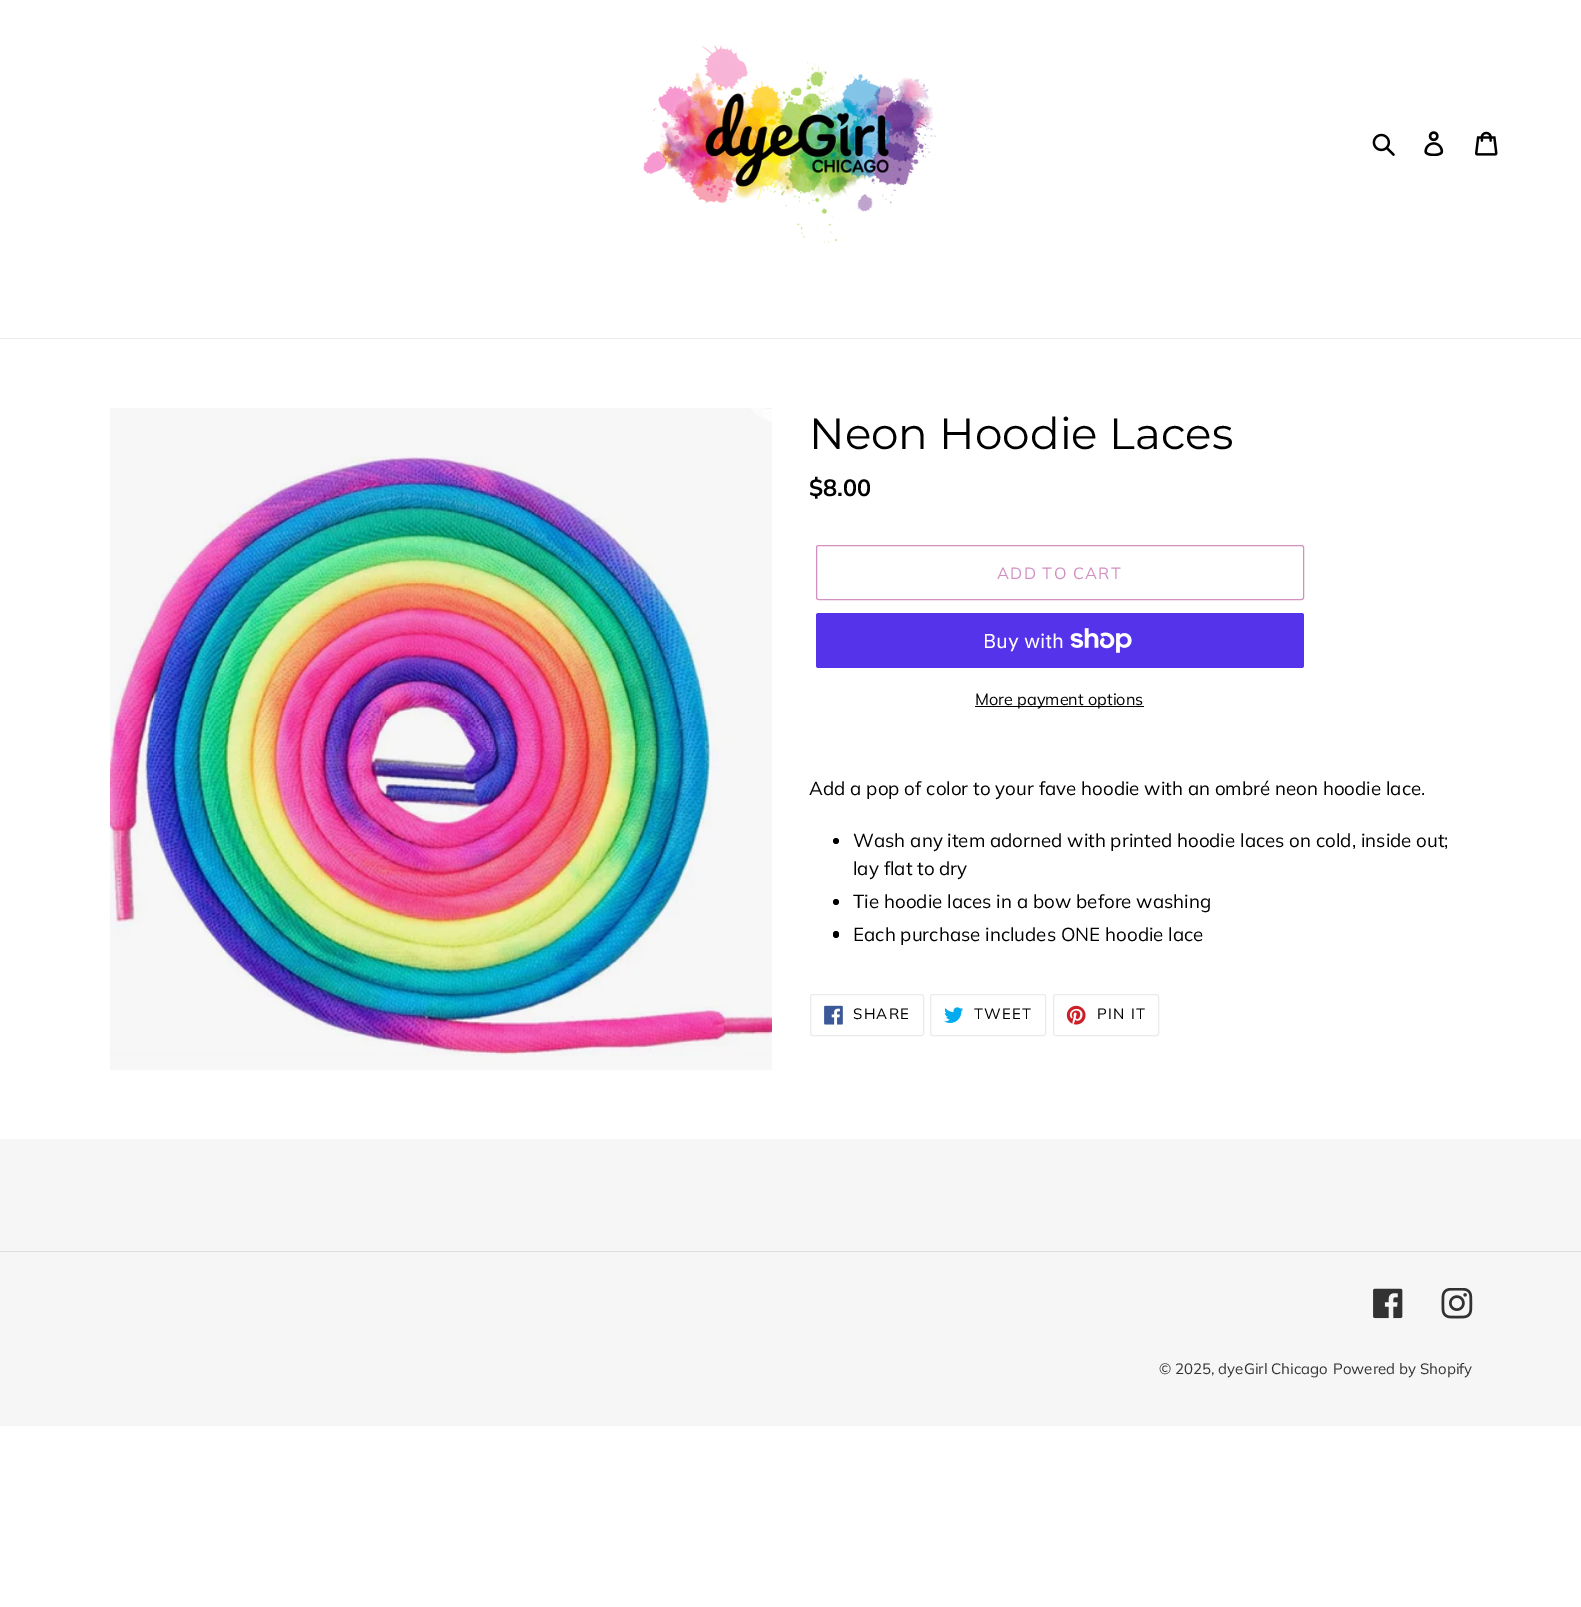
%!PS-Adobe-3.0
%%BoundingBox: 0 0 1581 1607
%%LanguageLevel: 3
%%Pages: 1
%%EndComments
%%BeginProlog
/setink { 3 { 255 div 3 1 roll } repeat setrgbcolor } def
/usefont { [ exch dup neg 0 0 3 -1 roll 0 0 ] selectfont } def
/drawtext { setink usefont moveto show } def
/fillbox { setink rectfill } def
/disc { newpath 0 360 arc closepath } def
/rrect { 5 dict begin { /r /h /w /y /x } { exch def } forall
  x r add y moveto x w add y 2 copy h add r arct x w add y h add x 1 index r arct
  x y h add x y r arct x y 2 copy exch w add exch r arct closepath end } def
/drawimage { 5 dict begin { /h /w /y /x /name } { exch def } forall
  gsave x y translate w h scale
  w h 8 [w 0 0 h 0 0] name (r) file false 3 colorimage grestore end } def
%%EndProlog
%%BeginSetup
<< /PageSize [1581 1607] >> setpagedevice
%%EndSetup
%%Page: 1 1
0 1607 translate 1 -1 scale
4 setmiterlimit
0 0 1581 1607 255 255 255 fillbox
(assets/img1.rgb) 643 45 293 198 drawimage
(assets/img2.rgb) 1372 133 23 23 drawimage
(assets/img3.rgb) 1424 131 20 25 drawimage
(assets/img4.rgb) 1475 131 23 25 drawimage
0 338 1581 1 235 235 235 fillbox
(assets/img5.rgb) 110 408 662 662 drawimage
(Neon Hoodie Laces) 809 449 /Montserrat-Regular 43.75 0 0 0 drawtext
($8.00) 809 496 /Muli-Bold 23.5 0 0 0 drawtext
210 143 194 setink
816.5 545.5 487 54 2 rrect stroke
/Muli-Regular 16.25 usefont
997 579 moveto 1.25 0 (ADD TO CART) ashow
84 51 235 setink
816 613 488 55 2.5 rrect fill
(Buy with) 983 648 /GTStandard-Regular 20 255 255 255 drawtext
(assets/img6.rgb) 1070 628 62 25 drawimage
975 706 169 1 0 0 0 fillbox
(More payment options) 975 705 /Muli-Regular 16.25 0 0 0 drawtext
(Add a pop of color to your fave hoodie with an ombré neon hoodie lace.) 809 795 /Muli-Regular 18.75 0 0 0 drawtext
836 841 3 disc fill
(Wash any item adorned with printed hoodie laces on cold, inside out;) 853 847 /Muli-Regular 18.75 0 0 0 drawtext
(lay flat to dry) 853 875 /Muli-Regular 18.75 0 0 0 drawtext
836 902 3 disc fill
(Tie hoodie laces in a bow before washing) 853 908 /Muli-Regular 18.75 0 0 0 drawtext
833 931 6 7 3 rrect fill
(Each purchase includes ONE hoodie lace) 853 941 /Muli-Regular 18.75 0 0 0 drawtext
235 235 235 setink
810.5 994.5 113 41 2 rrect stroke
(assets/img7.rgb) 824 1005 19 20 drawimage
/Muli-Regular 15 usefont
0 0 0 setink
853 1019 moveto 1.25 0 (SHARE) ashow
235 235 235 setink
930.5 994.5 115 41 2 rrect stroke
(assets/img8.rgb) 944 1007 20 16 drawimage
0 0 0 setink
974 1019 moveto 1.25 0 (TWEET) ashow
235 235 235 setink
1053.5 994.5 105 41 2 rrect stroke
(assets/img9.rgb) 1066 1005 20 20 drawimage
0 0 0 setink
1097 1019 moveto 1.25 0 (PIN IT) ashow
0 1139 1581 287 246 246 246 fillbox
0 1251 1581 1 221 221 221 fillbox
(assets/img10.rgb) 1373 1288 30 31 drawimage
(assets/img11.rgb) 1441 1288 32 31 drawimage
(© 2025, dyeGirl Chicago) 1159 1374 /Muli-Regular 15 51 50 50 drawtext
(Powered by Shopify) 1333 1374 /Muli-Regular 15 51 50 50 drawtext
showpage
%%EOF
